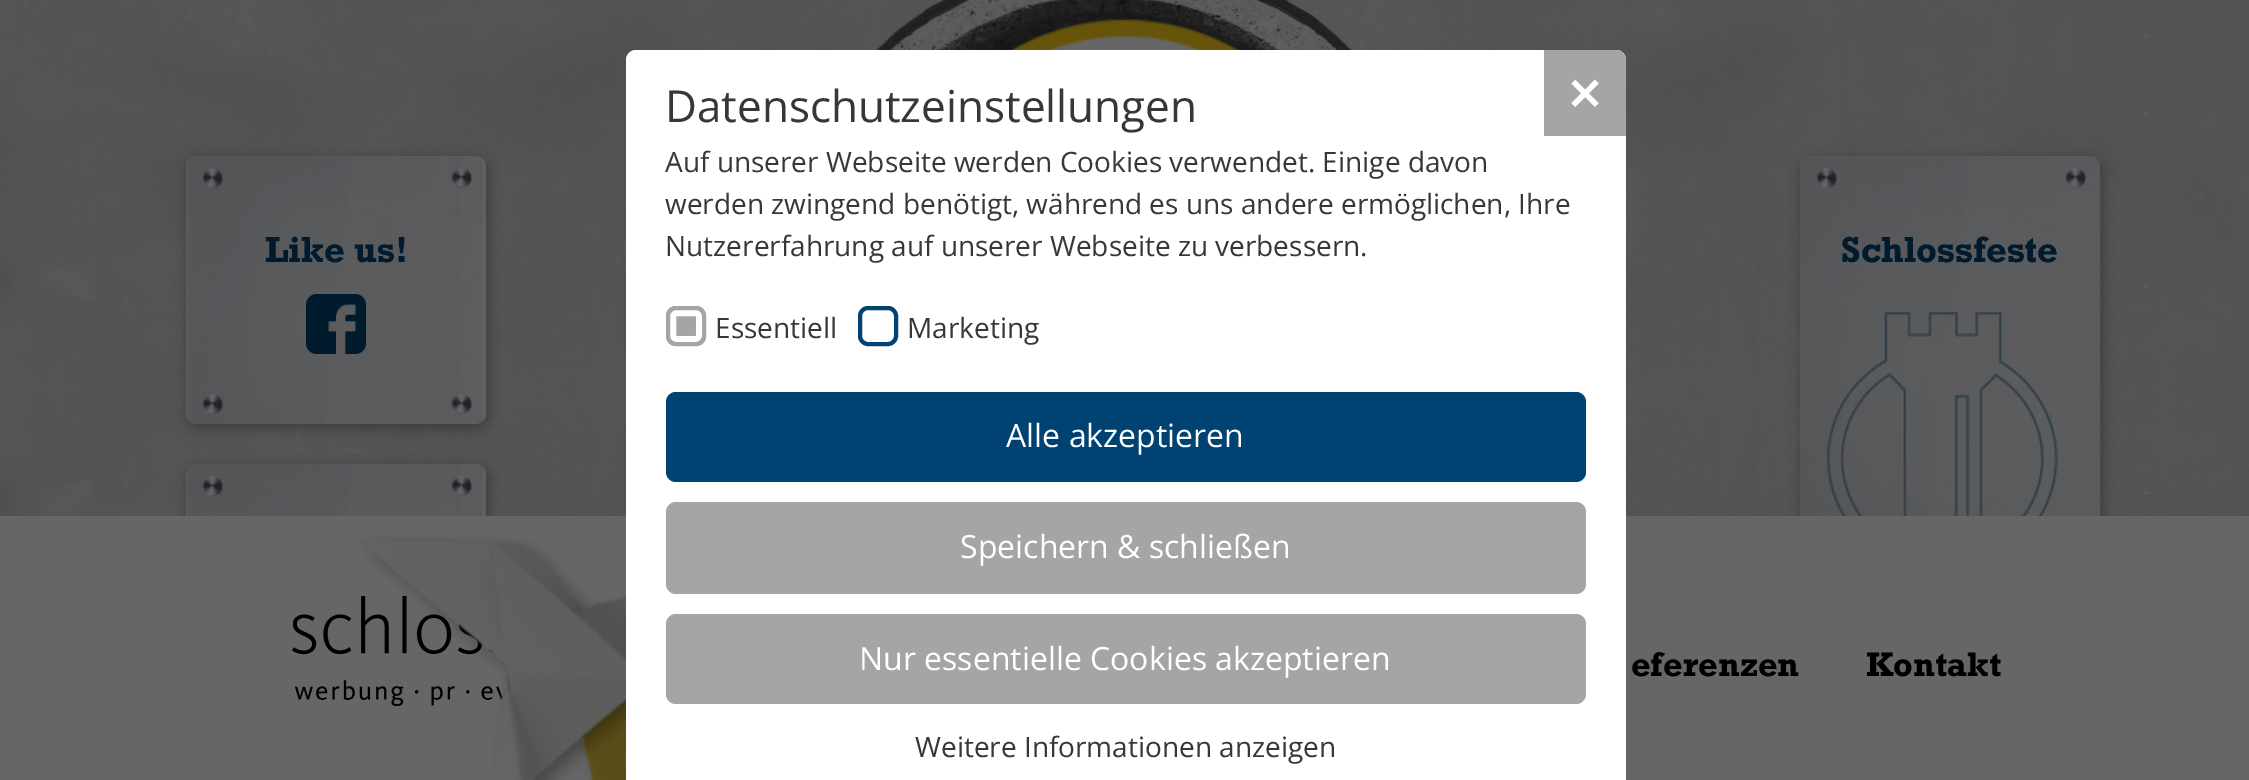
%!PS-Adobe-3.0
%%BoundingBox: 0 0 2249 780
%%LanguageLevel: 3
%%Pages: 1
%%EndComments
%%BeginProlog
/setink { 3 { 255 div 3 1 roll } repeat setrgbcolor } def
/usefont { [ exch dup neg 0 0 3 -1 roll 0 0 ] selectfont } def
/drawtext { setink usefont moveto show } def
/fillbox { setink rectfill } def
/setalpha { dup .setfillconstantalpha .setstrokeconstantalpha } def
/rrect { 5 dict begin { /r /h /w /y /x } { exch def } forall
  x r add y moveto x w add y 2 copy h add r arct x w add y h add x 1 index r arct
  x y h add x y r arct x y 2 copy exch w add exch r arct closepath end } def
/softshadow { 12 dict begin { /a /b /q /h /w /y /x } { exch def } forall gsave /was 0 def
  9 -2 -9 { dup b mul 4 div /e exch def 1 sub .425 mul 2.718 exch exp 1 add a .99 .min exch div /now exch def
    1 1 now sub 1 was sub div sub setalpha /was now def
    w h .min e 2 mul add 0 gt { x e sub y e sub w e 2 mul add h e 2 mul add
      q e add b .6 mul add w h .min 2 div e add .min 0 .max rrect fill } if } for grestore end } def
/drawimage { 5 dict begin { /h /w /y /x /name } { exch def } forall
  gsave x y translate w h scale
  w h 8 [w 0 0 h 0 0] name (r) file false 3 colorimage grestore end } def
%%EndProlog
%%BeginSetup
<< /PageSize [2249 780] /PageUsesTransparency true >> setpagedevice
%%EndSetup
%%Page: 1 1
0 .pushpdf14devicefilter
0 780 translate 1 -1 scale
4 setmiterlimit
0 0 2249 780 255 255 255 fillbox
(assets/img2.rgb) 0 0 943 516 drawimage
(assets/img11.rgb) 1286 0 963 516 drawimage
626 50 1000 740 10 rrect fill
(Datenschutzeinstellungen) 665 122 /OpenSans-Regular 44 55 55 55 drawtext
165 165 165 setink
1544 50 moveto 1616 50 lineto 1621.5 50 1626 54.5 1626 60 curveto 1626 136 lineto 1544 136 lineto closepath fill
(✕) 1566 110 /DejaVuSans-Bold 44 255 255 255 drawtext
(Auf unserer Webseite werden Cookies verwendet. Einige davon) 665 172 /OpenSans-Regular 28 55 55 55 drawtext
(werden zwingend benötigt, während es uns andere ermöglichen, Ihre) 665 214 /OpenSans-Regular 28 55 55 55 drawtext
(Nutzererfahrung auf unserer Webseite zu verbessern.) 665 256 /OpenSans-Regular 28 55 55 55 drawtext
165 165 165 setink
666 306 40 40 10 rrect fill
255 255 255 setink
6 setlinewidth
673 313 26 26 3 rrect stroke
165 165 165 setink
4 setlinewidth
668 308 36 36 8 rrect stroke
(Essentiell) 715 338 /OpenSans-Regular 28 55 55 55 drawtext
0 66 114 setink
860 308 36 36 8 rrect stroke
(Marketing) 907 338 /OpenSans-Regular 28 55 55 55 drawtext
0 66 114 setink
666 392 920 90 10 rrect fill
(Alle akzeptieren) 1006 447 /OpenSans-Regular 32 255 255 255 drawtext
165 165 165 setink
666 502 920 92 10 rrect fill
(Speichern & schließen) 960 558 /OpenSans-Regular 32 255 255 255 drawtext
165 165 165 setink
666 614 920 90 10 rrect fill
(Nur essentielle Cookies akzeptieren) 859 670 /OpenSans-Regular 32 255 255 255 drawtext
(Weitere Informationen anzeigen) 915 757 /OpenSans-Regular 28 55 55 55 drawtext
(assets/img3.rgb) 875 0 251 50 drawimage
(assets/img12.rgb) 1126 0 293 50 drawimage
(assets/img1.rgb) 1009 19 232 31 drawimage
gsave
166 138 moveto 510 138 lineto 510 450 lineto 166 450 lineto closepath 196 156 moveto 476 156 lineto 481.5 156 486 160.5 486 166 curveto 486 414 lineto 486 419.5 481.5 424 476 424 curveto 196 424 lineto 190.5 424 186 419.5 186 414 curveto 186 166 lineto 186 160.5 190.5 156 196 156 curveto closepath eoclip newpath
0 0 0 setink
188 160 300 268 10 7 0.3 softshadow
grestore
(assets/img4.rgb) 186 156 300 268 drawimage
(assets/img5.rgb) 202 167 270 21 drawimage
(Like us!) 265 262 /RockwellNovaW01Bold-Bold 34 0 26 46 drawtext
(assets/img6.rgb) 306 294 60 60 drawimage
(assets/img7.rgb) 202 393 270 21 drawimage
gsave
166 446 moveto 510 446 lineto 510 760 lineto 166 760 lineto closepath 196 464 moveto 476 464 lineto 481.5 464 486 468.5 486 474 curveto 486 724 lineto 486 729.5 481.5 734 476 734 curveto 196 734 lineto 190.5 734 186 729.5 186 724 curveto 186 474 lineto 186 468.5 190.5 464 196 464 curveto closepath eoclip newpath
0 0 0 setink
188 468 300 270 10 7 0.3 softshadow
grestore
(assets/img8.rgb) 186 464 300 52 drawimage
(assets/img9.rgb) 202 475 270 21 drawimage
0 516 626 264 102 102 102 fillbox
(assets/img10.rgb) 292 596 214 110 drawimage
gsave
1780 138 moveto 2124 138 lineto 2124 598 lineto 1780 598 lineto closepath 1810 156 moveto 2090 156 lineto 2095.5 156 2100 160.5 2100 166 curveto 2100 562 lineto 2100 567.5 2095.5 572 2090 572 curveto 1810 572 lineto 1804.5 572 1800 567.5 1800 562 curveto 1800 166 lineto 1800 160.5 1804.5 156 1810 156 curveto closepath eoclip newpath
0 0 0 setink
1802 160 300 416 10 7 0.3 softshadow
grestore
(assets/img13.rgb) 1800 156 300 360 drawimage
(assets/img14.rgb) 1816 167 270 21 drawimage
(Schlossfeste) 1841 262 /RockwellNovaW01Bold-Bold 34 0 26 46 drawtext
(assets/img15.rgb) 1827 311 231 205 drawimage
1626 516 623 264 102 102 102 fillbox
(eferenzen) 1631 676 /RockwellNovaW01Bold-Bold 32 0 0 0 drawtext
(Kontakt) 1866 676 /RockwellNovaW01Bold-Bold 32 0 0 0 drawtext
(assets/img16.rgb) 359 535 267 245 drawimage
.poppdf14devicefilter showpage
%%EOF
